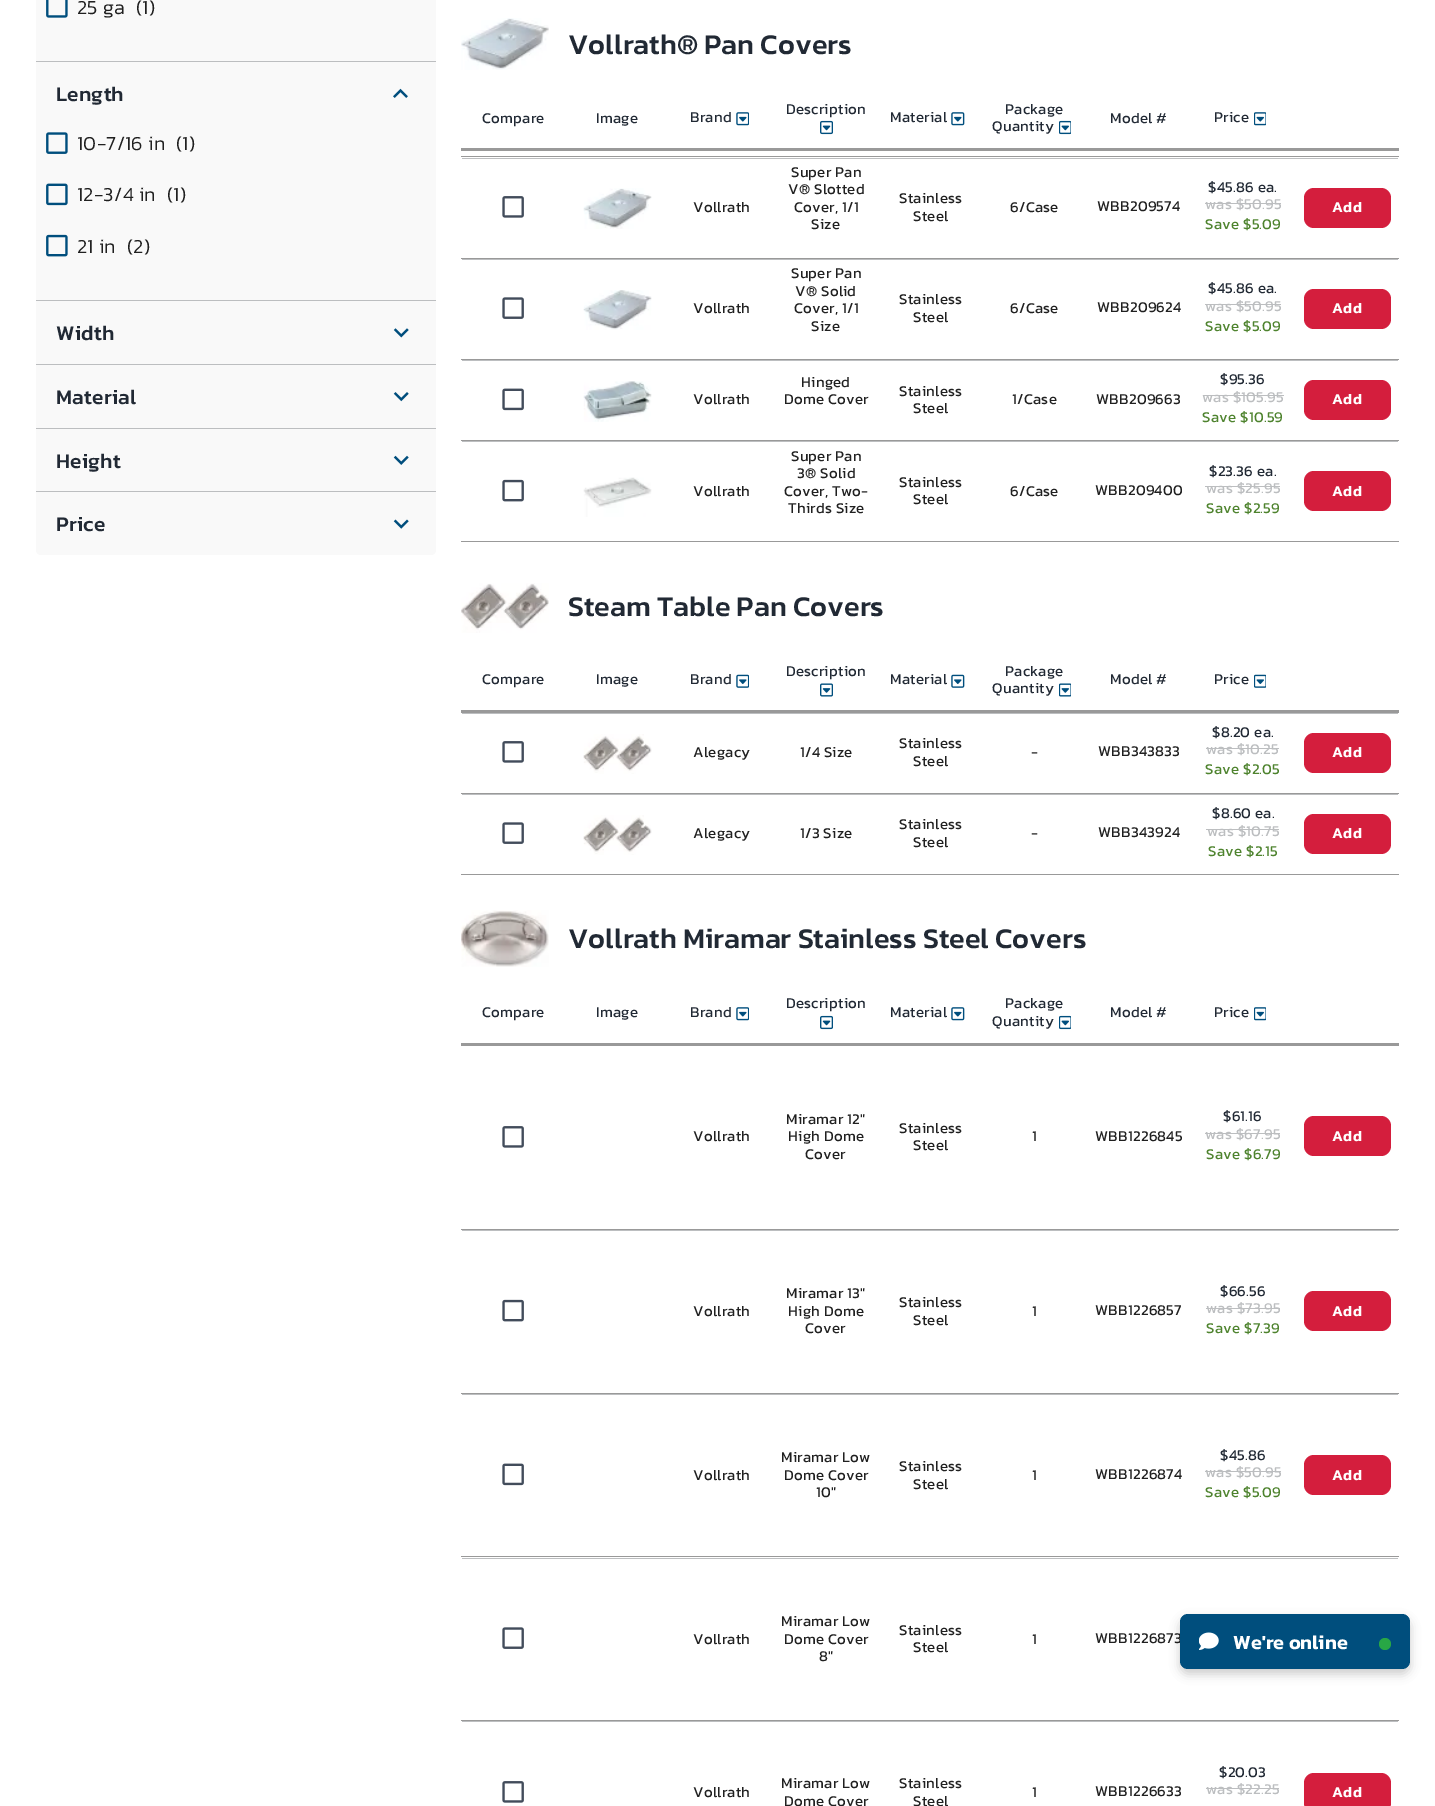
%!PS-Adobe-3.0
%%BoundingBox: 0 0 1435 1806
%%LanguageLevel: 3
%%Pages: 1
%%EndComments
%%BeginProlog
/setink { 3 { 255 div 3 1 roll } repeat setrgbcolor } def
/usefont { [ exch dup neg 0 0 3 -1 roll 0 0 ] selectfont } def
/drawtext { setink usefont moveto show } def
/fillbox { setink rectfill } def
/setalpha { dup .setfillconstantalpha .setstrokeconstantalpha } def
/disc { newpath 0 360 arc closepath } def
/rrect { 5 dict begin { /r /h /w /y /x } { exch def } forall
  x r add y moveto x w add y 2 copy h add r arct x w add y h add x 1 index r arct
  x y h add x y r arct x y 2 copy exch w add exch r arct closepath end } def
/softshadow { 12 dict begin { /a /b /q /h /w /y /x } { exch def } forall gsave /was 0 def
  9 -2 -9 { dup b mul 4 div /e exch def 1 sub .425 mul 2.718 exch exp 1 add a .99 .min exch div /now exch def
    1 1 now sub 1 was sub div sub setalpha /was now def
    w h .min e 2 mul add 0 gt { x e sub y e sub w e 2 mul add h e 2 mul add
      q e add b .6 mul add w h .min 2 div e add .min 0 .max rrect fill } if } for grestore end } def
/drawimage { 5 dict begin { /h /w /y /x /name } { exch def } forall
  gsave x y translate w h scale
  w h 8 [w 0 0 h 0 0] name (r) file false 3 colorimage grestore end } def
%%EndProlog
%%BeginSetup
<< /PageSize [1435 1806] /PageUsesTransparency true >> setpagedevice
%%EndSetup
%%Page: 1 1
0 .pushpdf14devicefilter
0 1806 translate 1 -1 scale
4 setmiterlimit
0 0 1435 1806 255 255 255 fillbox
36 0 400 61 249 249 249 fillbox
(assets/img1.rgb) 46 0 22 18 drawimage
/Kanit-Light 20 usefont
32 32 32 setink
77 14 moveto 0.25 0 (25 ga) ashow
136 14 moveto 0.25 0 (\(1\)) ashow
36 62 400 238 249 249 249 fillbox
36 61 400 1 188 190 192 fillbox
/Kanit-Medium 21 usefont
33 41 52 setink
56 101 moveto 0.25 0 (Length) ashow
(assets/img2.rgb) 393 88 15 10 drawimage
(assets/img3.rgb) 46 132 22 22 drawimage
/Kanit-Light 20 usefont
32 32 32 setink
77 150 moveto 0.25 0 (10-7/16 in) ashow
176 150 moveto 0.25 0 (\(1\)) ashow
(assets/img4.rgb) 46 183 22 23 drawimage
77 201 moveto 0.25 0 (12-3/4 in) ashow
167 201 moveto 0.25 0 (\(1\)) ashow
(assets/img5.rgb) 46 234 22 23 drawimage
77 253 moveto 0.25 0 (21 in) ashow
127 253 moveto 0.25 0 (\(2\)) ashow
36 301 400 63 249 249 249 fillbox
36 300 400 1 188 190 192 fillbox
/Kanit-Medium 21 usefont
33 41 52 setink
56 340 moveto 0.25 0 (Width) ashow
(assets/img6.rgb) 393 328 16 10 drawimage
36 365 400 63 249 249 249 fillbox
36 364 400 1 188 190 192 fillbox
33 41 52 setink
56 404 moveto 0.25 0 (Material) ashow
(assets/img7.rgb) 393 392 16 10 drawimage
36 429 400 62 249 249 249 fillbox
36 428 400 1 188 190 192 fillbox
33 41 52 setink
56 468 moveto 0.25 0 (Height) ashow
(assets/img8.rgb) 393 455 16 10 drawimage
249 249 249 setink
36 491 moveto 436 491 lineto 436 550 lineto 436 553 434 555 431 555 curveto 41 555 lineto 38 555 36 553 36 550 curveto closepath fill
36 491 400 1 188 190 192 fillbox
33 41 52 setink
56 531 moveto 0.25 0 (Price) ashow
(assets/img9.rgb) 393 519 16 10 drawimage
(assets/img10.rgb) 461 18 88 52 drawimage
(Vollrath® Pan Covers) 568 54 /Kanit-Medium 28.75 33 41 52 drawtext
461 148 938 3 153 153 153 fillbox
/Kanit-Regular 15 usefont
33 41 52 setink
482 123 moveto 0.25 0 (Compare) ashow
596 123 moveto 0.25 0 (Image) ashow
690 122 moveto 0.25 0 (Brand) ashow
(assets/img11.rgb) 736 112 13 14 drawimage
786 114 moveto 0.25 0 (Description) ashow
(assets/img12.rgb) 820 120 13 15 drawimage
890 122 moveto 0.25 0 (Material) ashow
(assets/img13.rgb) 951 112 14 14 drawimage
1005 114 moveto 0.25 0 (Package) ashow
992 131 moveto 0.25 0 (Quantity) ashow
(assets/img14.rgb) 1059 120 12 15 drawimage
1110 123 moveto 0.25 0 (Model #) ashow
1214 122 moveto 0.25 0 (Price) ashow
(assets/img15.rgb) 1254 112 12 14 drawimage
461 156 938 1 153 153 153 fillbox
461 158 938 1 188 190 192 fillbox
1398 158 1 1 255 255 255 fillbox
461 158 1 1 255 255 255 fillbox
(assets/img16.rgb) 583 188 69 41 drawimage
32 32 32 setink
791 177 moveto 0.25 0 (Super Pan) ashow
788 194 moveto 0.25 0 (V® Slotted) ashow
794 212 moveto 0.25 0 (Cover, 1/1) ashow
811 229 moveto 0.25 0 (Size) ashow
899 203 moveto 0.25 0 (Stainless) ashow
913 221 moveto 0.25 0 (Steel) ashow
33 41 52 setink
1208 192 moveto 0.25 0 ($45.86 ea.) ashow
188 190 192 setink
1205 209 moveto 0.25 0 (was $50.95) ashow
1205 203 76 1 188 190 192 fillbox
78 131 46 setink
1205 229 moveto 0.25 0 (Save $5.09) ashow
461 258 938 1 153 153 153 fillbox
(assets/img17.rgb) 502 196 22 22 drawimage
32 32 32 setink
693 212 moveto 0.25 0 (Vollrath) ashow
1010 212 moveto 0.25 0 (6/Case) ashow
1097 211 moveto 0.25 0 (WBB209574) ashow
212 30 61 setink
1304 188 87 40 10 rrect fill
/Kanit-SemiBold 15 usefont
255 255 255 setink
1332 212 moveto 0.5 0 (Add) ashow
461 259 938 1 188 190 192 fillbox
1398 259 1 1 255 255 255 fillbox
461 259 1 1 255 255 255 fillbox
(assets/img18.rgb) 583 290 69 40 drawimage
/Kanit-Regular 15 usefont
32 32 32 setink
791 278 moveto 0.25 0 (Super Pan) ashow
795 296 moveto 0.25 0 (V® Solid) ashow
794 313 moveto 0.25 0 (Cover, 1/1) ashow
811 331 moveto 0.25 0 (Size) ashow
899 304 moveto 0.25 0 (Stainless) ashow
913 322 moveto 0.25 0 (Steel) ashow
33 41 52 setink
1208 293 moveto 0.25 0 ($45.86 ea.) ashow
188 190 192 setink
1205 311 moveto 0.25 0 (was $50.95) ashow
1205 304 76 1 188 190 192 fillbox
78 131 46 setink
1205 331 moveto 0.25 0 (Save $5.09) ashow
461 359 938 1 153 153 153 fillbox
(assets/img19.rgb) 502 297 22 22 drawimage
32 32 32 setink
693 313 moveto 0.25 0 (Vollrath) ashow
1010 313 moveto 0.25 0 (6/Case) ashow
1097 312 moveto 0.25 0 (WBB209624) ashow
212 30 61 setink
1304 289 87 40 10 rrect fill
/Kanit-SemiBold 15 usefont
255 255 255 setink
1332 313 moveto 0.5 0 (Add) ashow
461 360 938 1 188 190 192 fillbox
1398 360 1 1 255 255 255 fillbox
461 360 1 1 255 255 255 fillbox
(assets/img20.rgb) 583 381 69 41 drawimage
/Kanit-Regular 15 usefont
32 32 32 setink
801 387 moveto 0.25 0 (Hinged) ashow
784 404 moveto 0.25 0 (Dome Cover) ashow
899 396 moveto 0.25 0 (Stainless) ashow
913 413 moveto 0.25 0 (Steel) ashow
33 41 52 setink
1220 384 moveto 0.25 0 ($95.36) ashow
188 190 192 setink
1202 402 moveto 0.25 0 (was $105.95) ashow
1203 395 81 1 188 190 192 fillbox
78 131 46 setink
1202 422 moveto 0.25 0 (Save $10.59) ashow
461 440 938 1 153 153 153 fillbox
(assets/img21.rgb) 502 388 22 23 drawimage
32 32 32 setink
693 404 moveto 0.25 0 (Vollrath) ashow
1012 404 moveto 0.25 0 (1/Case) ashow
1096 404 moveto 0.25 0 (WBB209663) ashow
212 30 61 setink
1304 380 87 40 10 rrect fill
/Kanit-SemiBold 15 usefont
255 255 255 setink
1332 404 moveto 0.5 0 (Add) ashow
461 441 938 1 188 190 192 fillbox
1398 441 1 1 255 255 255 fillbox
461 441 1 1 255 255 255 fillbox
(assets/img22.rgb) 583 477 69 40 drawimage
/Kanit-Regular 15 usefont
32 32 32 setink
791 461 moveto 0.25 0 (Super Pan) ashow
797 478 moveto 0.25 0 (3® Solid) ashow
784 496 moveto 0.25 0 (Cover, Two-) ashow
788 513 moveto 0.25 0 (Thirds Size) ashow
899 487 moveto 0.25 0 (Stainless) ashow
913 504 moveto 0.25 0 (Steel) ashow
33 41 52 setink
1209 476 moveto 0.25 0 ($23.36 ea.) ashow
188 190 192 setink
1206 493 moveto 0.25 0 (was $25.95) ashow
1205 486 75 1 188 190 192 fillbox
78 131 46 setink
1206 513 moveto 0.25 0 (Save $2.59) ashow
461 541 938 1 153 153 153 fillbox
(assets/img23.rgb) 502 479 22 23 drawimage
32 32 32 setink
693 496 moveto 0.25 0 (Vollrath) ashow
1010 496 moveto 0.25 0 (6/Case) ashow
1095 495 moveto 0.25 0 (WBB209400) ashow
212 30 61 setink
1304 471 87 40 10 rrect fill
/Kanit-SemiBold 15 usefont
255 255 255 setink
1332 496 moveto 0.5 0 (Add) ashow
(assets/img24.rgb) 461 583 88 50 drawimage
(Steam Table Pan Covers) 568 616 /Kanit-Medium 28.75 33 41 52 drawtext
461 710 938 3 153 153 153 fillbox
/Kanit-Regular 15 usefont
33 41 52 setink
482 684 moveto 0.25 0 (Compare) ashow
596 684 moveto 0.25 0 (Image) ashow
690 684 moveto 0.25 0 (Brand) ashow
(assets/img25.rgb) 736 674 13 14 drawimage
786 676 moveto 0.25 0 (Description) ashow
(assets/img26.rgb) 820 683 13 14 drawimage
890 684 moveto 0.25 0 (Material) ashow
(assets/img27.rgb) 951 674 14 14 drawimage
1005 676 moveto 0.25 0 (Package) ashow
992 693 moveto 0.25 0 (Quantity) ashow
(assets/img28.rgb) 1059 683 12 14 drawimage
1110 684 moveto 0.25 0 (Model #) ashow
1214 684 moveto 0.25 0 (Price) ashow
(assets/img29.rgb) 1254 674 12 14 drawimage
461 713 938 1 188 190 192 fillbox
1398 713 1 1 255 255 255 fillbox
461 713 1 1 255 255 255 fillbox
(assets/img30.rgb) 583 734 69 40 drawimage
32 32 32 setink
899 748 moveto 0.25 0 (Stainless) ashow
913 766 moveto 0.25 0 (Steel) ashow
33 41 52 setink
1212 737 moveto 0.25 0 ($8.20 ea.) ashow
188 190 192 setink
1206 754 moveto 0.25 0 (was $10.25) ashow
1206 748 73 1 188 190 192 fillbox
78 131 46 setink
1205 774 moveto 0.25 0 (Save $2.05) ashow
461 793 938 1 153 153 153 fillbox
(assets/img17.rgb) 502 741 22 22 drawimage
32 32 32 setink
693 757 moveto 0.25 0 (Alegacy) ashow
800 757 moveto 0.25 0 (1/4 Size) ashow
1031 757 moveto 0.25 0 (-) ashow
1098 756 moveto 0.25 0 (WBB343833) ashow
212 30 61 setink
1304 733 87 40 10 rrect fill
/Kanit-SemiBold 15 usefont
255 255 255 setink
1332 757 moveto 0.5 0 (Add) ashow
461 794 938 1 188 190 192 fillbox
1398 794 1 1 255 255 255 fillbox
461 794 1 1 255 255 255 fillbox
(assets/img31.rgb) 583 815 69 40 drawimage
/Kanit-Regular 15 usefont
32 32 32 setink
899 829 moveto 0.25 0 (Stainless) ashow
913 847 moveto 0.25 0 (Steel) ashow
33 41 52 setink
1212 818 moveto 0.25 0 ($8.60 ea.) ashow
188 190 192 setink
1207 836 moveto 0.25 0 (was $10.75) ashow
1206 829 73 1 188 190 192 fillbox
78 131 46 setink
1208 856 moveto 0.25 0 (Save $2.15) ashow
461 874 938 1 153 153 153 fillbox
(assets/img19.rgb) 502 822 22 22 drawimage
32 32 32 setink
693 838 moveto 0.25 0 (Alegacy) ashow
800 838 moveto 0.25 0 (1/3 Size) ashow
1031 838 moveto 0.25 0 (-) ashow
1098 837 moveto 0.25 0 (WBB343924) ashow
212 30 61 setink
1304 814 87 40 10 rrect fill
/Kanit-SemiBold 15 usefont
255 255 255 setink
1332 838 moveto 0.5 0 (Add) ashow
(assets/img32.rgb) 461 910 88 57 drawimage
(Vollrath Miramar Stainless Steel Covers) 568 948 /Kanit-Medium 28.75 33 41 52 drawtext
461 1043 938 3 153 153 153 fillbox
/Kanit-Regular 15 usefont
33 41 52 setink
482 1017 moveto 0.25 0 (Compare) ashow
596 1017 moveto 0.25 0 (Image) ashow
690 1017 moveto 0.25 0 (Brand) ashow
(assets/img11.rgb) 736 1007 13 14 drawimage
786 1008 moveto 0.25 0 (Description) ashow
(assets/img12.rgb) 820 1015 13 15 drawimage
890 1017 moveto 0.25 0 (Material) ashow
(assets/img13.rgb) 951 1007 14 14 drawimage
1005 1008 moveto 0.25 0 (Package) ashow
992 1026 moveto 0.25 0 (Quantity) ashow
(assets/img14.rgb) 1059 1015 12 15 drawimage
1110 1017 moveto 0.25 0 (Model #) ashow
1214 1017 moveto 0.25 0 (Price) ashow
(assets/img15.rgb) 1254 1007 12 14 drawimage
32 32 32 setink
786 1124 moveto 0.25 0 (Miramar 12") ashow
788 1141 moveto 0.25 0 (High Dome) ashow
805 1159 moveto 0.25 0 (Cover) ashow
899 1133 moveto 0.25 0 (Stainless) ashow
913 1150 moveto 0.25 0 (Steel) ashow
33 41 52 setink
1223 1121 moveto 0.25 0 ($61.16) ashow
188 190 192 setink
1205 1139 moveto 0.25 0 (was $67.95) ashow
1205 1133 75 1 188 190 192 fillbox
78 131 46 setink
1206 1159 moveto 0.25 0 (Save $6.79) ashow
461 1229 938 1 153 153 153 fillbox
(assets/img17.rgb) 502 1126 22 22 drawimage
32 32 32 setink
693 1141 moveto 0.25 0 (Vollrath) ashow
1032 1141 moveto 0.25 0 (1) ashow
1095 1141 moveto 0.25 0 (WBB1226845) ashow
212 30 61 setink
1304 1116 87 40 10 rrect fill
/Kanit-SemiBold 15 usefont
255 255 255 setink
1332 1141 moveto 0.5 0 (Add) ashow
461 1230 938 1 188 190 192 fillbox
1398 1230 1 1 255 255 255 fillbox
461 1230 1 1 255 255 255 fillbox
/Kanit-Regular 15 usefont
32 32 32 setink
786 1298 moveto 0.25 0 (Miramar 13") ashow
788 1316 moveto 0.25 0 (High Dome) ashow
805 1333 moveto 0.25 0 (Cover) ashow
899 1307 moveto 0.25 0 (Stainless) ashow
913 1325 moveto 0.25 0 (Steel) ashow
33 41 52 setink
1220 1296 moveto 0.25 0 ($66.56) ashow
188 190 192 setink
1206 1313 moveto 0.25 0 (was $73.95) ashow
1206 1308 74 1 188 190 192 fillbox
78 131 46 setink
1206 1333 moveto 0.25 0 (Save $7.39) ashow
461 1393 938 1 153 153 153 fillbox
(assets/img23.rgb) 502 1299 22 23 drawimage
32 32 32 setink
693 1316 moveto 0.25 0 (Vollrath) ashow
1032 1316 moveto 0.25 0 (1) ashow
1095 1315 moveto 0.25 0 (WBB1226857) ashow
212 30 61 setink
1304 1291 87 40 10 rrect fill
/Kanit-SemiBold 15 usefont
255 255 255 setink
1332 1316 moveto 0.5 0 (Add) ashow
461 1394 938 1 188 190 192 fillbox
1398 1394 1 1 255 255 255 fillbox
461 1394 1 1 255 255 255 fillbox
/Kanit-Regular 15 usefont
32 32 32 setink
781 1462 moveto 0.25 0 (Miramar Low) ashow
784 1480 moveto 0.25 0 (Dome Cover) ashow
816 1497 moveto 0.25 0 (10") ashow
899 1471 moveto 0.25 0 (Stainless) ashow
913 1489 moveto 0.25 0 (Steel) ashow
33 41 52 setink
1220 1460 moveto 0.25 0 ($45.86) ashow
188 190 192 setink
1205 1477 moveto 0.25 0 (was $50.95) ashow
1205 1471 76 1 188 190 192 fillbox
78 131 46 setink
1205 1497 moveto 0.25 0 (Save $5.09) ashow
461 1556 938 1 153 153 153 fillbox
(assets/img21.rgb) 502 1463 22 23 drawimage
32 32 32 setink
693 1480 moveto 0.25 0 (Vollrath) ashow
1032 1480 moveto 0.25 0 (1) ashow
1095 1479 moveto 0.25 0 (WBB1226874) ashow
212 30 61 setink
1304 1455 87 40 10 rrect fill
/Kanit-SemiBold 15 usefont
255 255 255 setink
1332 1480 moveto 0.5 0 (Add) ashow
461 1558 938 1 188 190 192 fillbox
1398 1558 1 1 255 255 255 fillbox
461 1558 1 1 255 255 255 fillbox
/Kanit-Regular 15 usefont
32 32 32 setink
781 1626 moveto 0.25 0 (Miramar Low) ashow
784 1644 moveto 0.25 0 (Dome Cover) ashow
819 1661 moveto 0.25 0 (8") ashow
899 1635 moveto 0.25 0 (Stainless) ashow
913 1652 moveto 0.25 0 (Steel) ashow
461 1720 938 1 153 153 153 fillbox
(assets/img19.rgb) 502 1627 22 22 drawimage
32 32 32 setink
693 1644 moveto 0.25 0 (Vollrath) ashow
1032 1644 moveto 0.25 0 (1) ashow
1095 1643 moveto 0.25 0 (WBB1226873) ashow
461 1721 938 1 188 190 192 fillbox
1398 1721 1 1 255 255 255 fillbox
461 1721 1 1 255 255 255 fillbox
(assets/img17.rgb) 502 1781 22 22 drawimage
32 32 32 setink
693 1797 moveto 0.25 0 (Vollrath) ashow
781 1788 moveto 0.25 0 (Miramar Low) ashow
784 1806 moveto 0.25 0 (Dome Cover) ashow
899 1788 moveto 0.25 0 (Stainless) ashow
913 1806 moveto 0.25 0 (Steel) ashow
1032 1797 moveto 0.25 0 (1) ashow
1095 1796 moveto 0.25 0 (WBB1226633) ashow
33 41 52 setink
1219 1777 moveto 0.25 0 ($20.03) ashow
188 190 192 setink
1206 1794 moveto 0.25 0 (was $22.25) ashow
1206 1788 73 1 188 190 192 fillbox
212 30 61 setink
1304 1773 87 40 10 rrect fill
/Kanit-SemiBold 15 usefont
255 255 255 setink
1332 1797 moveto 0.5 0 (Add) ashow
0 0 0 setink
1180 1619 230 55 8 5 0.2 softshadow
0 78 125 setink
1180 1614 230 55 8 rrect fill
(assets/img33.rgb) 1199 1632 20 18 drawimage
(We're online) 1233 1649 /Kanit-SemiBold 20 255 255 255 drawtext
40 167 69 setink
1385 1644 6 disc fill
.poppdf14devicefilter showpage
%%EOF
